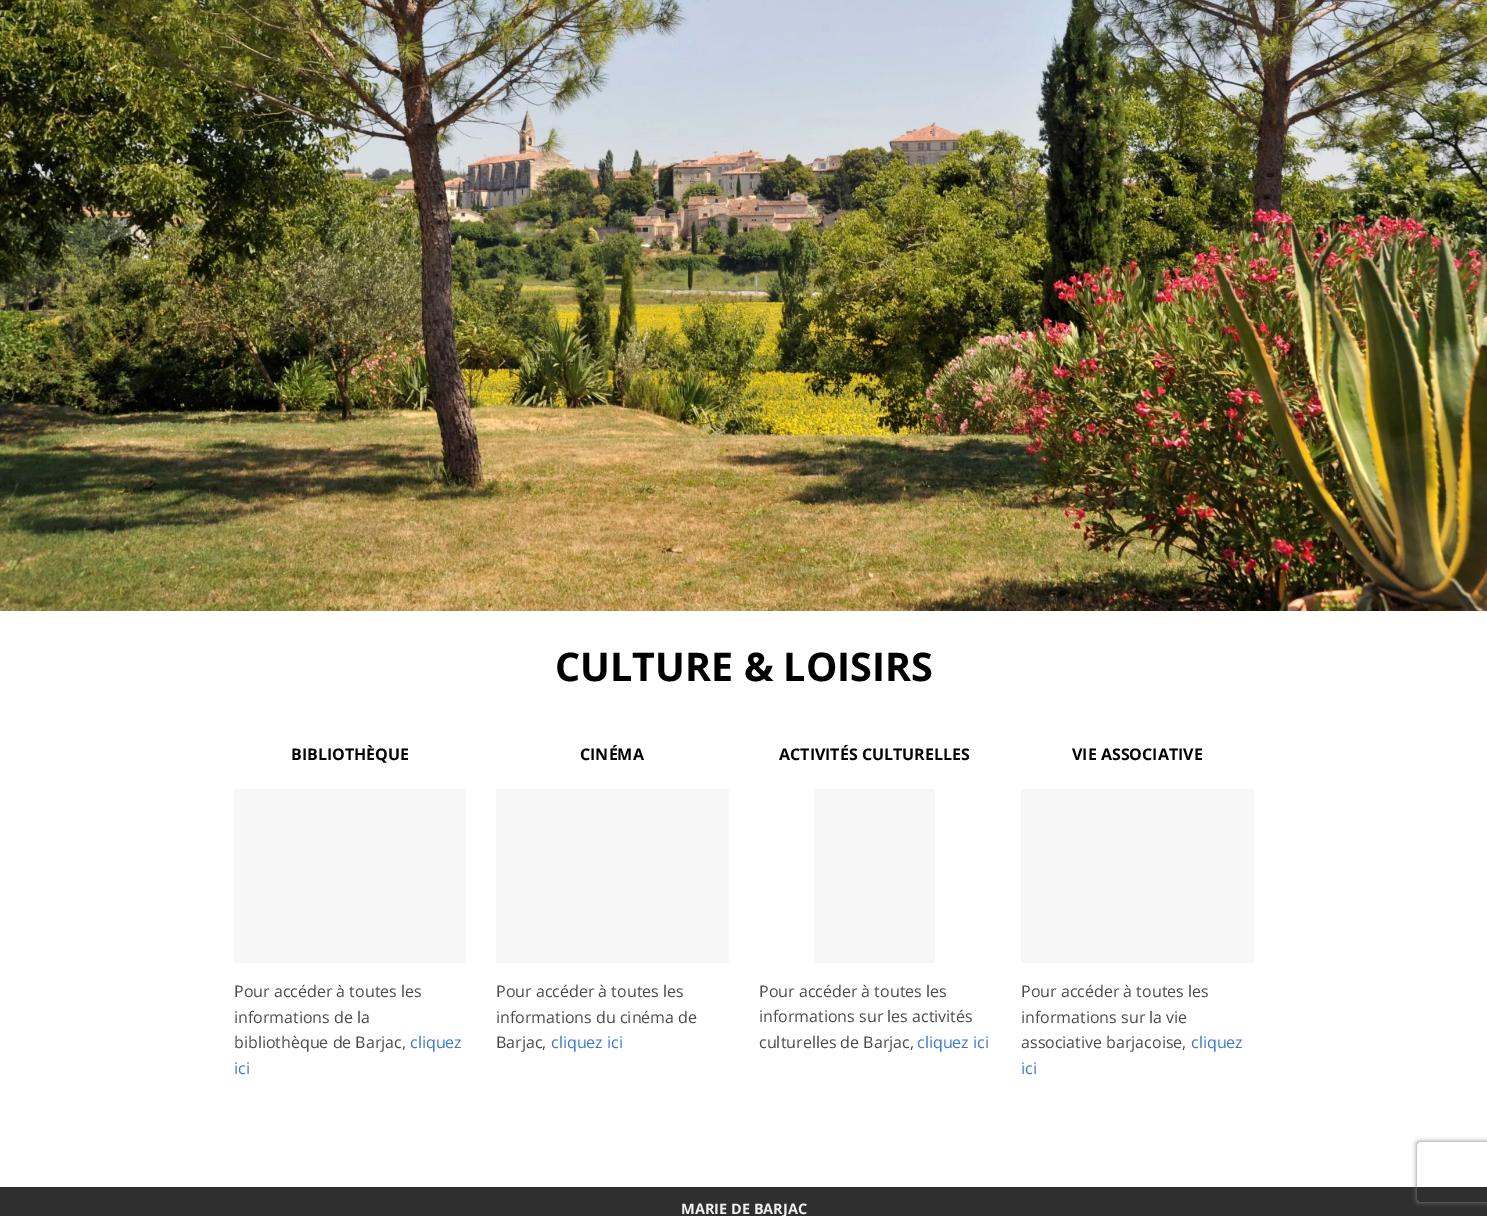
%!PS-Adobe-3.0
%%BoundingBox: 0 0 1487 1216
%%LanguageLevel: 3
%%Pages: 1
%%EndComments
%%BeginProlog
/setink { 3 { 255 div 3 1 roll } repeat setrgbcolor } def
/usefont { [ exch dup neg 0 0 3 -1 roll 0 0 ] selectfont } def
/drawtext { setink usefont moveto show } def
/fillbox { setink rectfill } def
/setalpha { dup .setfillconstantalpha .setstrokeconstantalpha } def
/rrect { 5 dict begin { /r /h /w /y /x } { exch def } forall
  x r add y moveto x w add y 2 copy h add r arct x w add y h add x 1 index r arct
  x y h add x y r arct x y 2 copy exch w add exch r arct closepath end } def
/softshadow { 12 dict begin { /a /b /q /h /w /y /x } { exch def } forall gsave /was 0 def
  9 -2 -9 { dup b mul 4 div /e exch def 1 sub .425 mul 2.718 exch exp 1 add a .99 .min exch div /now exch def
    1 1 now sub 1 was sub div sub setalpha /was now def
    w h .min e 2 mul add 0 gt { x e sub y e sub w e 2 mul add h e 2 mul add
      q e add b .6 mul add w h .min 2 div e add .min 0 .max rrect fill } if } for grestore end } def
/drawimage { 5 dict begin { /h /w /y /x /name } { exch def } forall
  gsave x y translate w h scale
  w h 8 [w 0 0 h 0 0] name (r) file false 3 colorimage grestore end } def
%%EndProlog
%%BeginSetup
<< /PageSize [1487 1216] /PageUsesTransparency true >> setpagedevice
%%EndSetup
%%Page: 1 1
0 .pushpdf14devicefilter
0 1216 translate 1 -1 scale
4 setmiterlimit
0 0 1487 1216 255 255 255 fillbox
(assets/img1.rgb) 0 0 1487 611 drawimage
(CULTURE & LOISIRS) 555 681 /OpenSans-Bold 39.5 0 0 0 drawtext
(BIBLIOTHÈQUE) 291 760 /OpenSans-Bold 16 0 0 0 drawtext
234 789 232 174 247 247 247 fillbox
(Pour accéder à toutes les) 234 997 /OpenSans-Regular 16 74 74 74 drawtext
(informations de la) 234 1023 /OpenSans-Regular 16 74 74 74 drawtext
(bibliothèque de Barjac,) 234 1048 /OpenSans-Regular 16 74 74 74 drawtext
(cliquez) 410 1048 /OpenSans-Regular 16 60 120 204 drawtext
(ici) 234 1074 /OpenSans-Regular 16 60 120 204 drawtext
(CINÉMA) 580 760 /OpenSans-Bold 16 0 0 0 drawtext
496 789 233 174 247 247 247 fillbox
(Pour accéder à toutes les) 496 997 /OpenSans-Regular 16 74 74 74 drawtext
(informations du cinéma de) 496 1023 /OpenSans-Regular 16 74 74 74 drawtext
(Barjac,) 496 1048 /OpenSans-Regular 16 74 74 74 drawtext
(cliquez ici) 551 1048 /OpenSans-Regular 16 60 120 204 drawtext
(ACTIVITÉS CULTURELLES) 779 760 /OpenSans-Bold 16 0 0 0 drawtext
814 789 121 174 247 247 247 fillbox
(Pour accéder à toutes les) 759 997 /OpenSans-Regular 16 74 74 74 drawtext
(informations sur les activités) 759 1022 /OpenSans-Regular 16 74 74 74 drawtext
(culturelles de Barjac,) 759 1048 /OpenSans-Regular 16 74 74 74 drawtext
(cliquez ici) 917 1048 /OpenSans-Regular 16 60 120 204 drawtext
(VIE ASSOCIATIVE) 1072 760 /OpenSans-Bold 16 0 0 0 drawtext
1021 789 233 174 247 247 247 fillbox
(Pour accéder à toutes les) 1021 997 /OpenSans-Regular 16 74 74 74 drawtext
(informations sur la vie) 1021 1023 /OpenSans-Regular 16 74 74 74 drawtext
(associative barjacoise,) 1021 1048 /OpenSans-Regular 16 74 74 74 drawtext
(cliquez) 1191 1048 /OpenSans-Regular 16 60 120 204 drawtext
(ici) 1021 1074 /OpenSans-Regular 16 60 120 204 drawtext
0 1187 1487 29 47 47 47 fillbox
(MARIE DE BARJAC) 681 1214 /OpenSans-Bold 14.5 241 241 241 drawtext
gsave
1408 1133 moveto 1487 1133 lineto 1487 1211 lineto 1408 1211 lineto closepath 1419 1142 moveto 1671 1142 lineto 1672 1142 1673 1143 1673 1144 curveto 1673 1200 lineto 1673 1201 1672 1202 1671 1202 curveto 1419 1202 lineto 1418 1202 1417 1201 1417 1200 curveto 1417 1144 lineto 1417 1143 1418 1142 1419 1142 curveto closepath eoclip newpath
128 128 128 setink
1417 1142 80 60 2 2.5 1 softshadow
grestore
.poppdf14devicefilter showpage
%%EOF
